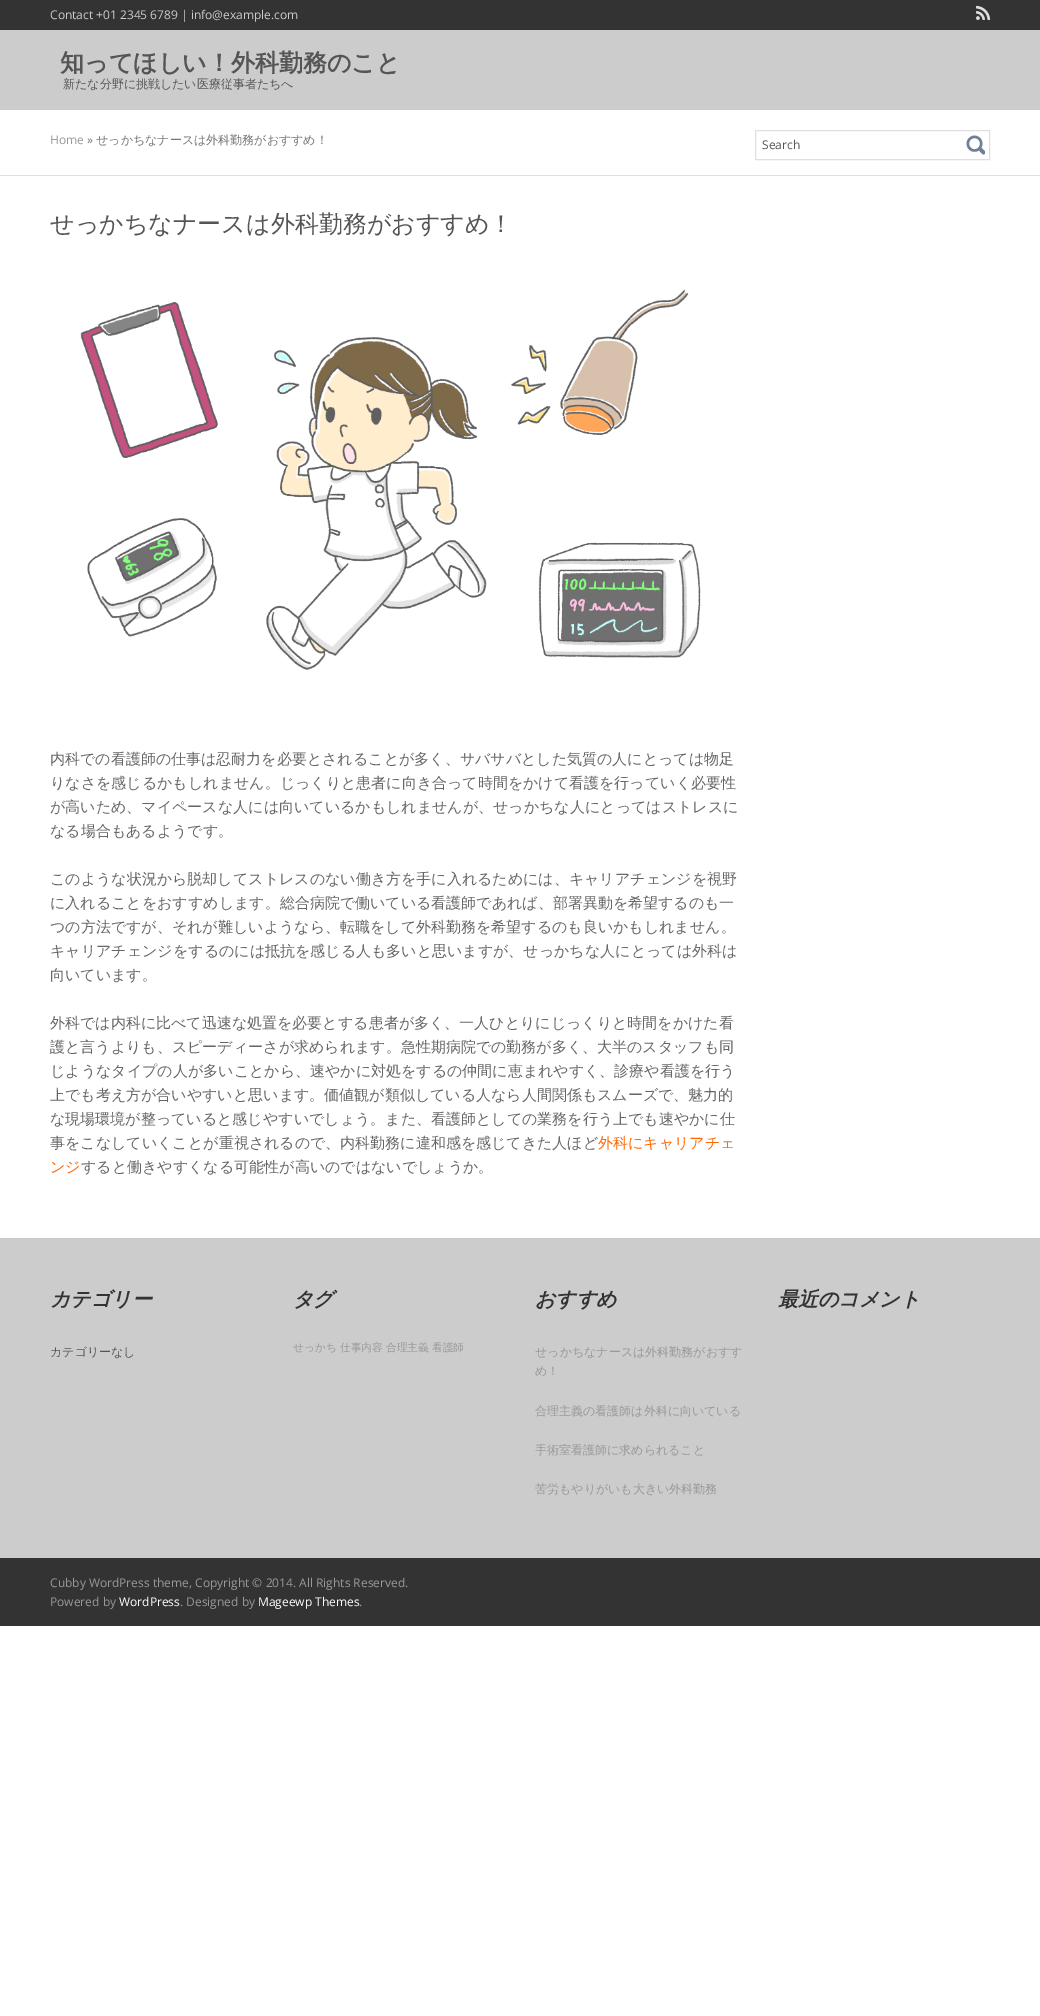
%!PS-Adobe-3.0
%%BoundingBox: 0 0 1040 2016
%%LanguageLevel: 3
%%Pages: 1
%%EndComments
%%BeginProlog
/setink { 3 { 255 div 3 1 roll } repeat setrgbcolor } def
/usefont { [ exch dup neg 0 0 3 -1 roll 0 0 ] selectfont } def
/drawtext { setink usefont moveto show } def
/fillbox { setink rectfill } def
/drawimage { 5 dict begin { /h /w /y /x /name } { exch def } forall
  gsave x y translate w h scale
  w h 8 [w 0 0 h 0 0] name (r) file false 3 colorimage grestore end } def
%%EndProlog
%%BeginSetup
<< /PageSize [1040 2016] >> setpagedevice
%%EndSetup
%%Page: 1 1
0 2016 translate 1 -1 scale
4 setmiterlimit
0 0 1040 2016 255 255 255 fillbox
0 0 1040 30 51 51 51 fillbox
(Contact +01 2345 6789 | info@example.com) 50 19 /OpenSans-Regular 12 204 204 204 drawtext
(assets/img1.rgb) 976 5 15 15 drawimage
0 30 1040 80 204 204 204 fillbox
(知ってほしい！外科勤務のこと) 60 71 /WenQuanYiZenHei-Bold 24 85 85 85 drawtext
(新たな分野に挑戦したい医療従事者たちへ) 63 88 /WenQuanYiZenHei-Medium 12 85 85 85 drawtext
0 175 1040 1 223 223 223 fillbox
(Home) 50 144 /OpenSans-Regular 12 153 153 153 drawtext
(») 87 144 /OpenSans-Regular 12 119 119 119 drawtext
(せっかちなナースは外科勤務がおすすめ！) 96 144 /WenQuanYiZenHei-Medium 12 119 119 119 drawtext
223 223 223 setink
755.5 130.5 234 29 rectstroke
(Search) 762 149 /OpenSans-Regular 12 85 85 85 drawtext
(assets/img2.rgb) 966 135 19 20 drawimage
(せっかちなナースは外科勤務がおすすめ！) 50 232 /WenQuanYiZenHei-Medium 24 85 85 85 drawtext
(assets/img3.rgb) 80 289 621 381 drawimage
(内科での看護師の仕事は忍耐力を必要とされることが多く、サバサバとした気質の人にとっては物足) 50 764 /WenQuanYiZenHei-Medium 15 102 102 102 drawtext
(りなさを感じるかもしれません。じっくりと患者に向き合って時間をかけて看護を行っていく必要性) 50 788 /WenQuanYiZenHei-Medium 15 102 102 102 drawtext
(が高いため、マイペースな人には向いているかもしれませんが、せっかちな人にとってはストレスに) 50 812 /WenQuanYiZenHei-Medium 15 102 102 102 drawtext
(なる場合もあるようです。) 50 836 /WenQuanYiZenHei-Medium 15 102 102 102 drawtext
(このような状況から脱却してストレスのない働き方を手に入れるためには、キャリアチェンジを視野) 50 884 /WenQuanYiZenHei-Medium 15 102 102 102 drawtext
(に入れることをおすすめします。総合病院で働いている看護師であれば、部署異動を希望するのも一) 50 908 /WenQuanYiZenHei-Medium 15 102 102 102 drawtext
(つの方法ですが、それが難しいようなら、転職をして外科勤務を希望するのも良いかもしれません。) 50 932 /WenQuanYiZenHei-Medium 15 102 102 102 drawtext
(キャリアチェンジをするのには抵抗を感じる人も多いと思いますが、せっかちな人にとっては外科は) 50 956 /WenQuanYiZenHei-Medium 15 102 102 102 drawtext
(向いています。) 50 980 /WenQuanYiZenHei-Medium 15 102 102 102 drawtext
(外科では内科に比べて迅速な処置を必要とする患者が多く、一人ひとりにじっくりと時間をかけた看) 50 1028 /WenQuanYiZenHei-Medium 15 102 102 102 drawtext
(護と言うよりも、スピーディーさが求められます。急性期病院での勤務が多く、大半のスタッフも同) 50 1052 /WenQuanYiZenHei-Medium 15 102 102 102 drawtext
(じようなタイプの人が多いことから、速やかに対処をするの仲間に恵まれやすく、診療や看護を行う) 50 1076 /WenQuanYiZenHei-Medium 15 102 102 102 drawtext
(上でも考え方が合いやすいと思います。価値観が類似している人なら人間関係もスムーズで、魅力的) 50 1100 /WenQuanYiZenHei-Medium 15 102 102 102 drawtext
(な現場環境が整っていると感じやすいでしょう。また、看護師としての業務を行う上でも速やかに仕) 50 1124 /WenQuanYiZenHei-Medium 15 102 102 102 drawtext
(事をこなしていくことが重視されるので、内科勤務に違和感を感じてきた人ほど) 50 1148 /WenQuanYiZenHei-Medium 15 102 102 102 drawtext
(外科にキャリアチェ) 598 1148 /WenQuanYiZenHei-Medium 15 255 102 0 drawtext
(ンジ) 50 1172 /WenQuanYiZenHei-Medium 15 255 102 0 drawtext
(すると働きやすくなる可能性が高いのではないでしょうか。) 81 1172 /WenQuanYiZenHei-Medium 15 102 102 102 drawtext
0 1238 1040 320 204 204 204 fillbox
(カテゴリー) 50 1306 /WenQuanYiZenHei-BoldItalic 20 51 51 51 drawtext
(カテゴリーなし) 50 1356 /WenQuanYiZenHei-Medium 12 85 85 85 drawtext
(タグ) 293 1306 /WenQuanYiZenHei-BoldItalic 20 51 51 51 drawtext
(せっかち 仕事内容 合理主義 看護師) 293 1351 /WenQuanYiZenHei-Medium 10.7 153 153 153 drawtext
(おすすめ) 535 1306 /WenQuanYiZenHei-BoldItalic 20 51 51 51 drawtext
(せっかちなナースは外科勤務がおすす) 535 1356 /WenQuanYiZenHei-Medium 12 153 153 153 drawtext
(め！) 535 1375 /WenQuanYiZenHei-Medium 12 153 153 153 drawtext
(合理主義の看護師は外科に向いている) 535 1415 /WenQuanYiZenHei-Medium 12 153 153 153 drawtext
(手術室看護師に求められること) 535 1454 /WenQuanYiZenHei-Medium 12 153 153 153 drawtext
(苦労もやりがいも大きい外科勤務) 535 1493 /WenQuanYiZenHei-Medium 12 153 153 153 drawtext
(最近のコメント) 778 1306 /WenQuanYiZenHei-BoldItalic 20 51 51 51 drawtext
0 1558 1040 68 51 51 51 fillbox
(Cubby WordPress theme, Copyright © 2014. All Rights Reserved.) 50 1587 /OpenSans-Regular 12 153 153 153 drawtext
(Powered by) 50 1606 /OpenSans-Regular 12 153 153 153 drawtext
(WordPress) 119 1606 /OpenSans-Regular 12 255 255 255 drawtext
(. Designed by) 180 1606 /OpenSans-Regular 12 153 153 153 drawtext
(Mageewp Themes) 258 1606 /OpenSans-Regular 12 255 255 255 drawtext
(.) 359 1606 /OpenSans-Regular 12 153 153 153 drawtext
showpage
%%EOF
